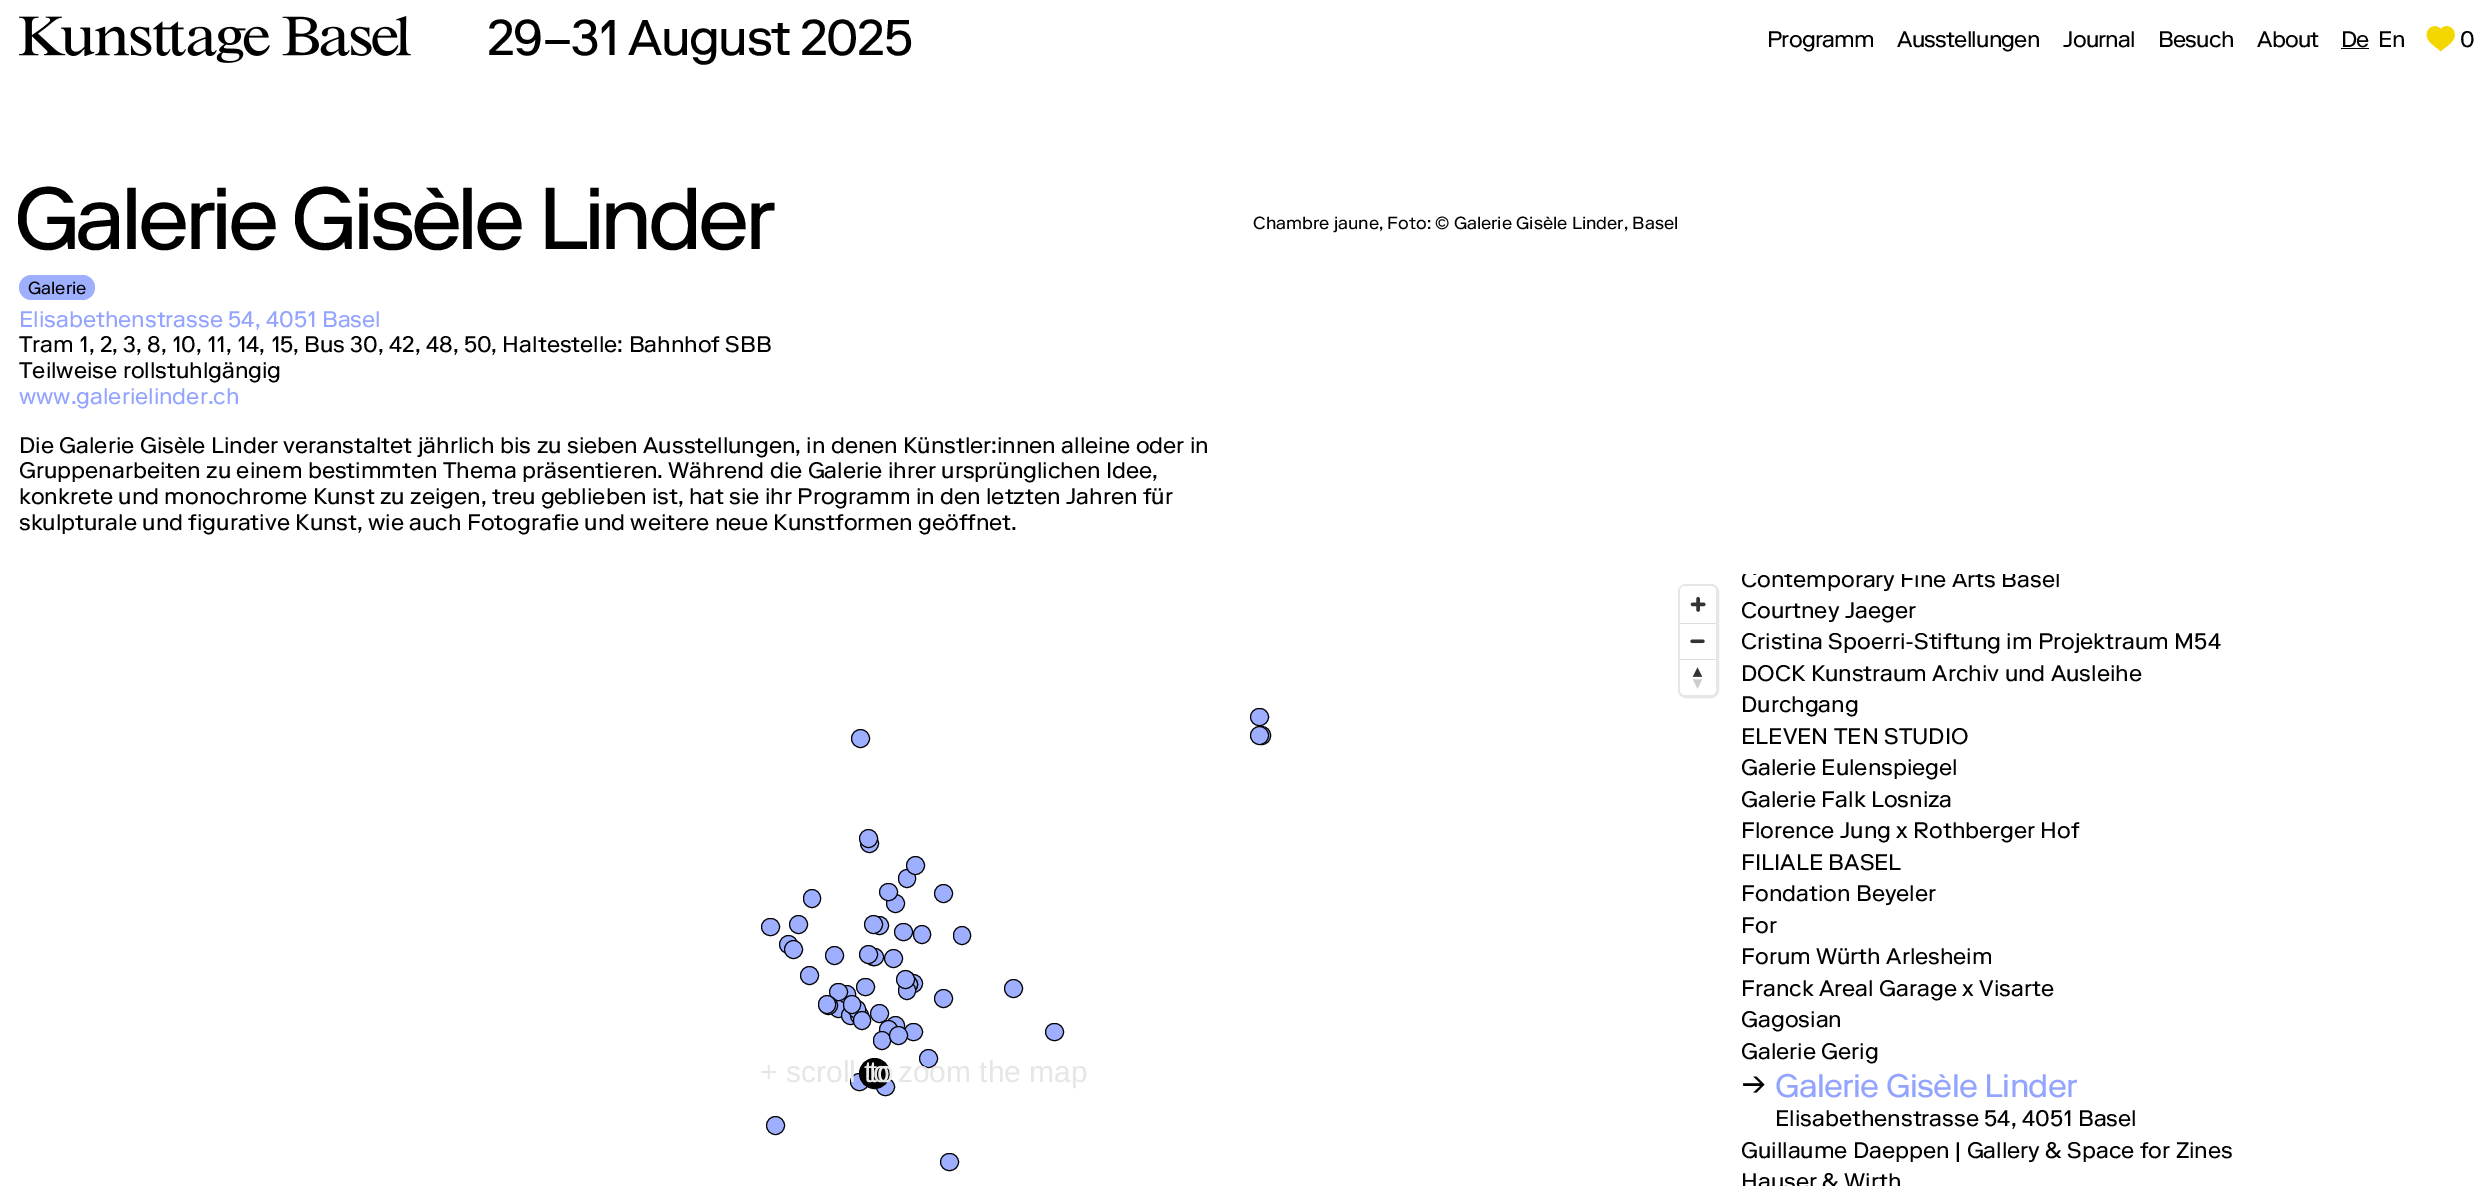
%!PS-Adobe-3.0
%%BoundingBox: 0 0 2492 1186
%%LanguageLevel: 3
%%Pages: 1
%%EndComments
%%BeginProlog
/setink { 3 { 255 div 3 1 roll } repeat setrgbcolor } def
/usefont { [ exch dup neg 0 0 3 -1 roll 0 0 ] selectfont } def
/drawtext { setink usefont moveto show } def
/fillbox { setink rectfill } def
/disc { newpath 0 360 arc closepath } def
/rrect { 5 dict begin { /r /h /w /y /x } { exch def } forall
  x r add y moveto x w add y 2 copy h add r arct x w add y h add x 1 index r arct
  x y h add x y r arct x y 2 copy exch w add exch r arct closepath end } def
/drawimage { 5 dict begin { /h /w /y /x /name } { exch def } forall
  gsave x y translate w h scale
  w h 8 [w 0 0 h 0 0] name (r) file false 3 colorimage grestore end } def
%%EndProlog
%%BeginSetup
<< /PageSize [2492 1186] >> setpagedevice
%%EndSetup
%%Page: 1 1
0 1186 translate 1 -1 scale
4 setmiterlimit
0 0 2492 1186 255 255 255 fillbox
(assets/img1.rgb) 19 16 392 47 drawimage
/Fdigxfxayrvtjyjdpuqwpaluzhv-Regular 50 usefont
0 0 0 setink
487 55 moveto -1.5 0 (29–31 August 2025) ashow
/Fdigxfxayrvtjyjdpuqwpaluzhv-Regular 22.5 usefont
1767 47 moveto -0.75 0 (Programm) ashow
1897 47 moveto -0.75 0 (Ausstellungen) ashow
2063 47 moveto -0.75 0 (Journal) ashow
2158 47 moveto -0.75 0 (Besuch) ashow
2257 47 moveto -0.75 0 (About) ashow
2341 47 moveto -0.75 0 (De) ashow
2341 48 28 1 0 0 0 fillbox
2378 47 moveto -0.75 0 (En) ashow
(assets/img2.rgb) 2426 26 29 26 drawimage
2460 47 moveto -0.75 0 (0) ashow
/Fdigxfxayrvtjyjdpuqwpaluzhv-Regular 87.5 usefont
14 249 moveto -4.4 0 (Galerie Gisèle Linder) ashow
158 175 255 setink
19 275 76 25 12.5 rrect fill
(Galerie) 28 294 /Fdigxfxayrvtjyjdpuqwpaluzhv-Regular 17.5 0 0 0 drawtext
(Elisabethenstrasse 54, 4051 Basel) 19 327 /Fdigxfxayrvtjyjdpuqwpaluzhv-Regular 22.5 146 164 255 drawtext
(Tram 1, 2, 3, 8, 10, 11, 14, 15, Bus 30, 42, 48, 50, Haltestelle: Bahnhof SBB) 19 352 /Fdigxfxayrvtjyjdpuqwpaluzhv-Regular 22.5 0 0 0 drawtext
(Teilweise rollstuhlgängig) 19 378 /Fdigxfxayrvtjyjdpuqwpaluzhv-Regular 22.5 0 0 0 drawtext
(www.galerielinder.ch) 19 404 /Fdigxfxayrvtjyjdpuqwpaluzhv-Regular 22.5 146 164 255 drawtext
(Die Galerie Gisèle Linder veranstaltet jährlich bis zu sieben Ausstellungen, in denen Künstler:innen alleine oder in) 19 453 /Fdigxfxayrvtjyjdpuqwpaluzhv-Regular 22.5 0 0 0 drawtext
(Gruppenarbeiten zu einem bestimmten Thema präsentieren. Während die Galerie ihrer ursprünglichen Idee,) 19 478 /Fdigxfxayrvtjyjdpuqwpaluzhv-Regular 22.5 0 0 0 drawtext
(konkrete und monochrome Kunst zu zeigen, treu geblieben ist, hat sie ihr Programm in den letzten Jahren für) 19 504 /Fdigxfxayrvtjyjdpuqwpaluzhv-Regular 22.5 0 0 0 drawtext
(skulpturale und figurative Kunst, wie auch Fotografie und weitere neue Kunstformen geöffnet.) 19 530 /Fdigxfxayrvtjyjdpuqwpaluzhv-Regular 22.5 0 0 0 drawtext
(Chambre jaune, Foto: © Galerie Gisèle Linder, Basel) 1253 229 /Fdigxfxayrvtjyjdpuqwpaluzhv-Regular 17.5 0 0 0 drawtext
230 230 230 setink
3 setlinewidth
1679.5 585.5 38 111 6.5 rrect stroke
255 255 255 setink
1680 586 36 109 5 rrect fill
(assets/img3.rgb) 1690 596 16 16 drawimage
1680 623 36 1 221 221 221 fillbox
(assets/img4.rgb) 1690 639 15 5 drawimage
1680 659 36 1 221 221 221 fillbox
(assets/img5.rgb) 1692 667 11 22 drawimage
158 175 255 setink
1250.5 708.5 18 17 8.5 rrect gsave fill grestore
0 0 0 setink
1 setlinewidth
stroke
158 175 255 setink
1253.5 726.5 17 18 8.5 rrect gsave fill grestore
0 0 0 setink
stroke
158 175 255 setink
1259.5 735.5 9 disc gsave fill grestore
0 0 0 setink
stroke
158 175 255 setink
860.5 738.5 9 disc gsave fill grestore
0 0 0 setink
stroke
158 175 255 setink
869.5 843.5 9 disc gsave fill grestore
0 0 0 setink
stroke
158 175 255 setink
868.5 838.5 9 disc gsave fill grestore
0 0 0 setink
stroke
158 175 255 setink
898.5 869.5 17 18 8.5 rrect gsave fill grestore
0 0 0 setink
stroke
158 175 255 setink
915.5 865.5 9 disc gsave fill grestore
0 0 0 setink
stroke
158 175 255 setink
803.5 889.5 17 18 8.5 rrect gsave fill grestore
0 0 0 setink
stroke
158 175 255 setink
895.5 903.5 9 disc gsave fill grestore
0 0 0 setink
stroke
158 175 255 setink
879.5 883.5 18 17 8.5 rrect gsave fill grestore
0 0 0 setink
stroke
158 175 255 setink
943.5 893.5 9 disc gsave fill grestore
0 0 0 setink
stroke
158 175 255 setink
798.5 924.5 9 disc gsave fill grestore
0 0 0 setink
stroke
158 175 255 setink
879.5 925.5 9 disc gsave fill grestore
0 0 0 setink
stroke
158 175 255 setink
873.5 924.5 9 disc gsave fill grestore
0 0 0 setink
stroke
158 175 255 setink
788.5 944.5 9 disc gsave fill grestore
0 0 0 setink
stroke
158 175 255 setink
761.5 918.5 18 17 8.5 rrect gsave fill grestore
0 0 0 setink
stroke
158 175 255 setink
894.5 923.5 18 17 8.5 rrect gsave fill grestore
0 0 0 setink
stroke
158 175 255 setink
913.5 925.5 17 18 8.5 rrect gsave fill grestore
0 0 0 setink
stroke
158 175 255 setink
953.5 926.5 17 18 8.5 rrect gsave fill grestore
0 0 0 setink
stroke
158 175 255 setink
793.5 949.5 9 disc gsave fill grestore
0 0 0 setink
stroke
158 175 255 setink
834.5 955.5 9 disc gsave fill grestore
0 0 0 setink
stroke
864.5 948.5 18 17 8.5 rrect stroke
158 175 255 setink
865.5 948.5 18 17 8.5 rrect gsave fill grestore
0 0 0 setink
stroke
158 175 255 setink
868.5 954.5 9 disc gsave fill grestore
0 0 0 setink
stroke
158 175 255 setink
893.5 958.5 9 disc gsave fill grestore
0 0 0 setink
stroke
158 175 255 setink
809.5 975.5 9 disc gsave fill grestore
0 0 0 setink
stroke
898.5 971.5 17 18 8.5 rrect stroke
158 175 255 setink
913.5 983.5 9 disc gsave fill grestore
0 0 0 setink
stroke
908.5 984.5 9 disc stroke
158 175 255 setink
908.5 984.5 9 disc gsave fill grestore
0 0 0 setink
stroke
158 175 255 setink
898.5 981.5 17 18 8.5 rrect gsave fill grestore
0 0 0 setink
stroke
158 175 255 setink
905.5 979.5 9 disc gsave fill grestore
0 0 0 setink
stroke
158 175 255 setink
856.5 978.5 18 17 8.5 rrect gsave fill grestore
0 0 0 setink
stroke
158 175 255 setink
1013.5 988.5 9 disc gsave fill grestore
0 0 0 setink
stroke
158 175 255 setink
838.5 1008.5 9 disc gsave fill grestore
0 0 0 setink
stroke
158 175 255 setink
838.5 985.5 17 18 8.5 rrect gsave fill grestore
0 0 0 setink
stroke
158 175 255 setink
829.5 983.5 18 17 8.5 rrect gsave fill grestore
0 0 0 setink
stroke
158 175 255 setink
828.5 1005.5 9 disc gsave fill grestore
0 0 0 setink
stroke
158 175 255 setink
818.5 995.5 17 18 8.5 rrect gsave fill grestore
0 0 0 setink
stroke
158 175 255 setink
943.5 998.5 9 disc gsave fill grestore
0 0 0 setink
stroke
158 175 255 setink
850.5 1015.5 9 disc gsave fill grestore
0 0 0 setink
stroke
158 175 255 setink
859.5 1015.5 9 disc gsave fill grestore
0 0 0 setink
stroke
158 175 255 setink
848.5 1000.5 17 18 8.5 rrect gsave fill grestore
0 0 0 setink
stroke
158 175 255 setink
879.5 1013.5 9 disc gsave fill grestore
0 0 0 setink
stroke
158 175 255 setink
853.5 1011.5 17 18 8.5 rrect gsave fill grestore
0 0 0 setink
stroke
158 175 255 setink
843.5 995.5 17 18 8.5 rrect gsave fill grestore
0 0 0 setink
stroke
158 175 255 setink
904.5 1023.5 18 17 8.5 rrect gsave fill grestore
0 0 0 setink
stroke
158 175 255 setink
895.5 1025.5 9 disc gsave fill grestore
0 0 0 setink
stroke
880.5 1023.5 18 17 8.5 rrect stroke
158 175 255 setink
888.5 1029.5 9 disc gsave fill grestore
0 0 0 setink
stroke
158 175 255 setink
1045.5 1023.5 18 17 8.5 rrect gsave fill grestore
0 0 0 setink
stroke
158 175 255 setink
873.5 1031.5 17 18 8.5 rrect gsave fill grestore
0 0 0 setink
stroke
158 175 255 setink
898.5 1035.5 9 disc gsave fill grestore
0 0 0 setink
stroke
158 175 255 setink
850.5 1073.5 18 17 8.5 rrect gsave fill grestore
0 0 0 setink
stroke
878.5 1079.5 9 disc stroke
158 175 255 setink
876.5 1078.5 18 17 8.5 rrect gsave fill grestore
0 0 0 setink
stroke
874.5 1073.5 15 disc gsave fill grestore
stroke
158 175 255 setink
928.5 1058.5 9 disc gsave fill grestore
0 0 0 setink
stroke
158 175 255 setink
775.5 1125.5 9 disc gsave fill grestore
0 0 0 setink
stroke
158 175 255 setink
940.5 1153.5 18 17 8.5 rrect gsave fill grestore
0 0 0 setink
stroke
(to) 869 1082 /LiberationSans-Regular 30 239 239 240 drawtext
(+ scroll to zoom the map) 760 1082 /LiberationSans-Regular 30 230 230 230 drawtext
gsave
1741 574 733 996 rectclip
(Contemporary Fine Arts Basel) 1741 587 /Fdigxfxayrvtjyjdpuqwpaluzhv-Regular 22.5 0 0 0 drawtext
grestore
(Courtney Jaeger) 1741 618 /Fdigxfxayrvtjyjdpuqwpaluzhv-Regular 22.5 0 0 0 drawtext
(Cristina Spoerri-Stiftung im Projektraum M54) 1741 649 /Fdigxfxayrvtjyjdpuqwpaluzhv-Regular 22.5 0 0 0 drawtext
(DOCK Kunstraum Archiv und Ausleihe) 1741 681 /Fdigxfxayrvtjyjdpuqwpaluzhv-Regular 22.5 0 0 0 drawtext
(Durchgang) 1741 712 /Fdigxfxayrvtjyjdpuqwpaluzhv-Regular 22.5 0 0 0 drawtext
(ELEVEN TEN STUDIO) 1741 744 /Fdigxfxayrvtjyjdpuqwpaluzhv-Regular 22.5 0 0 0 drawtext
(Galerie Eulenspiegel) 1741 775 /Fdigxfxayrvtjyjdpuqwpaluzhv-Regular 22.5 0 0 0 drawtext
(Galerie Falk Losniza) 1741 807 /Fdigxfxayrvtjyjdpuqwpaluzhv-Regular 22.5 0 0 0 drawtext
(Florence Jung x Rothberger Hof) 1741 838 /Fdigxfxayrvtjyjdpuqwpaluzhv-Regular 22.5 0 0 0 drawtext
(FILIALE BASEL) 1741 870 /Fdigxfxayrvtjyjdpuqwpaluzhv-Regular 22.5 0 0 0 drawtext
(Fondation Beyeler) 1741 901 /Fdigxfxayrvtjyjdpuqwpaluzhv-Regular 22.5 0 0 0 drawtext
(For) 1741 933 /Fdigxfxayrvtjyjdpuqwpaluzhv-Regular 22.5 0 0 0 drawtext
(Forum Würth Arlesheim) 1741 964 /Fdigxfxayrvtjyjdpuqwpaluzhv-Regular 22.5 0 0 0 drawtext
(Franck Areal Garage x Visarte) 1741 996 /Fdigxfxayrvtjyjdpuqwpaluzhv-Regular 22.5 0 0 0 drawtext
(Gagosian) 1741 1027 /Fdigxfxayrvtjyjdpuqwpaluzhv-Regular 22.5 0 0 0 drawtext
(Galerie Gerig) 1741 1059 /Fdigxfxayrvtjyjdpuqwpaluzhv-Regular 22.5 0 0 0 drawtext
(assets/img6.rgb) 1743 1076 22 17 drawimage
/Fdigxfxayrvtjyjdpuqwpaluzhv-Regular 32.5 usefont
146 164 255 setink
1775 1097 moveto -0.65 0 (Galerie Gisèle Linder) ashow
(Elisabethenstrasse 54, 4051 Basel) 1775 1126 /Fdigxfxayrvtjyjdpuqwpaluzhv-Regular 22.5 0 0 0 drawtext
(Guillaume Daeppen | Gallery & Space for Zines) 1741 1158 /Fdigxfxayrvtjyjdpuqwpaluzhv-Regular 22.5 0 0 0 drawtext
(Hauser & Wirth) 1741 1189 /Fdigxfxayrvtjyjdpuqwpaluzhv-Regular 22.5 0 0 0 drawtext
showpage
%%EOF
